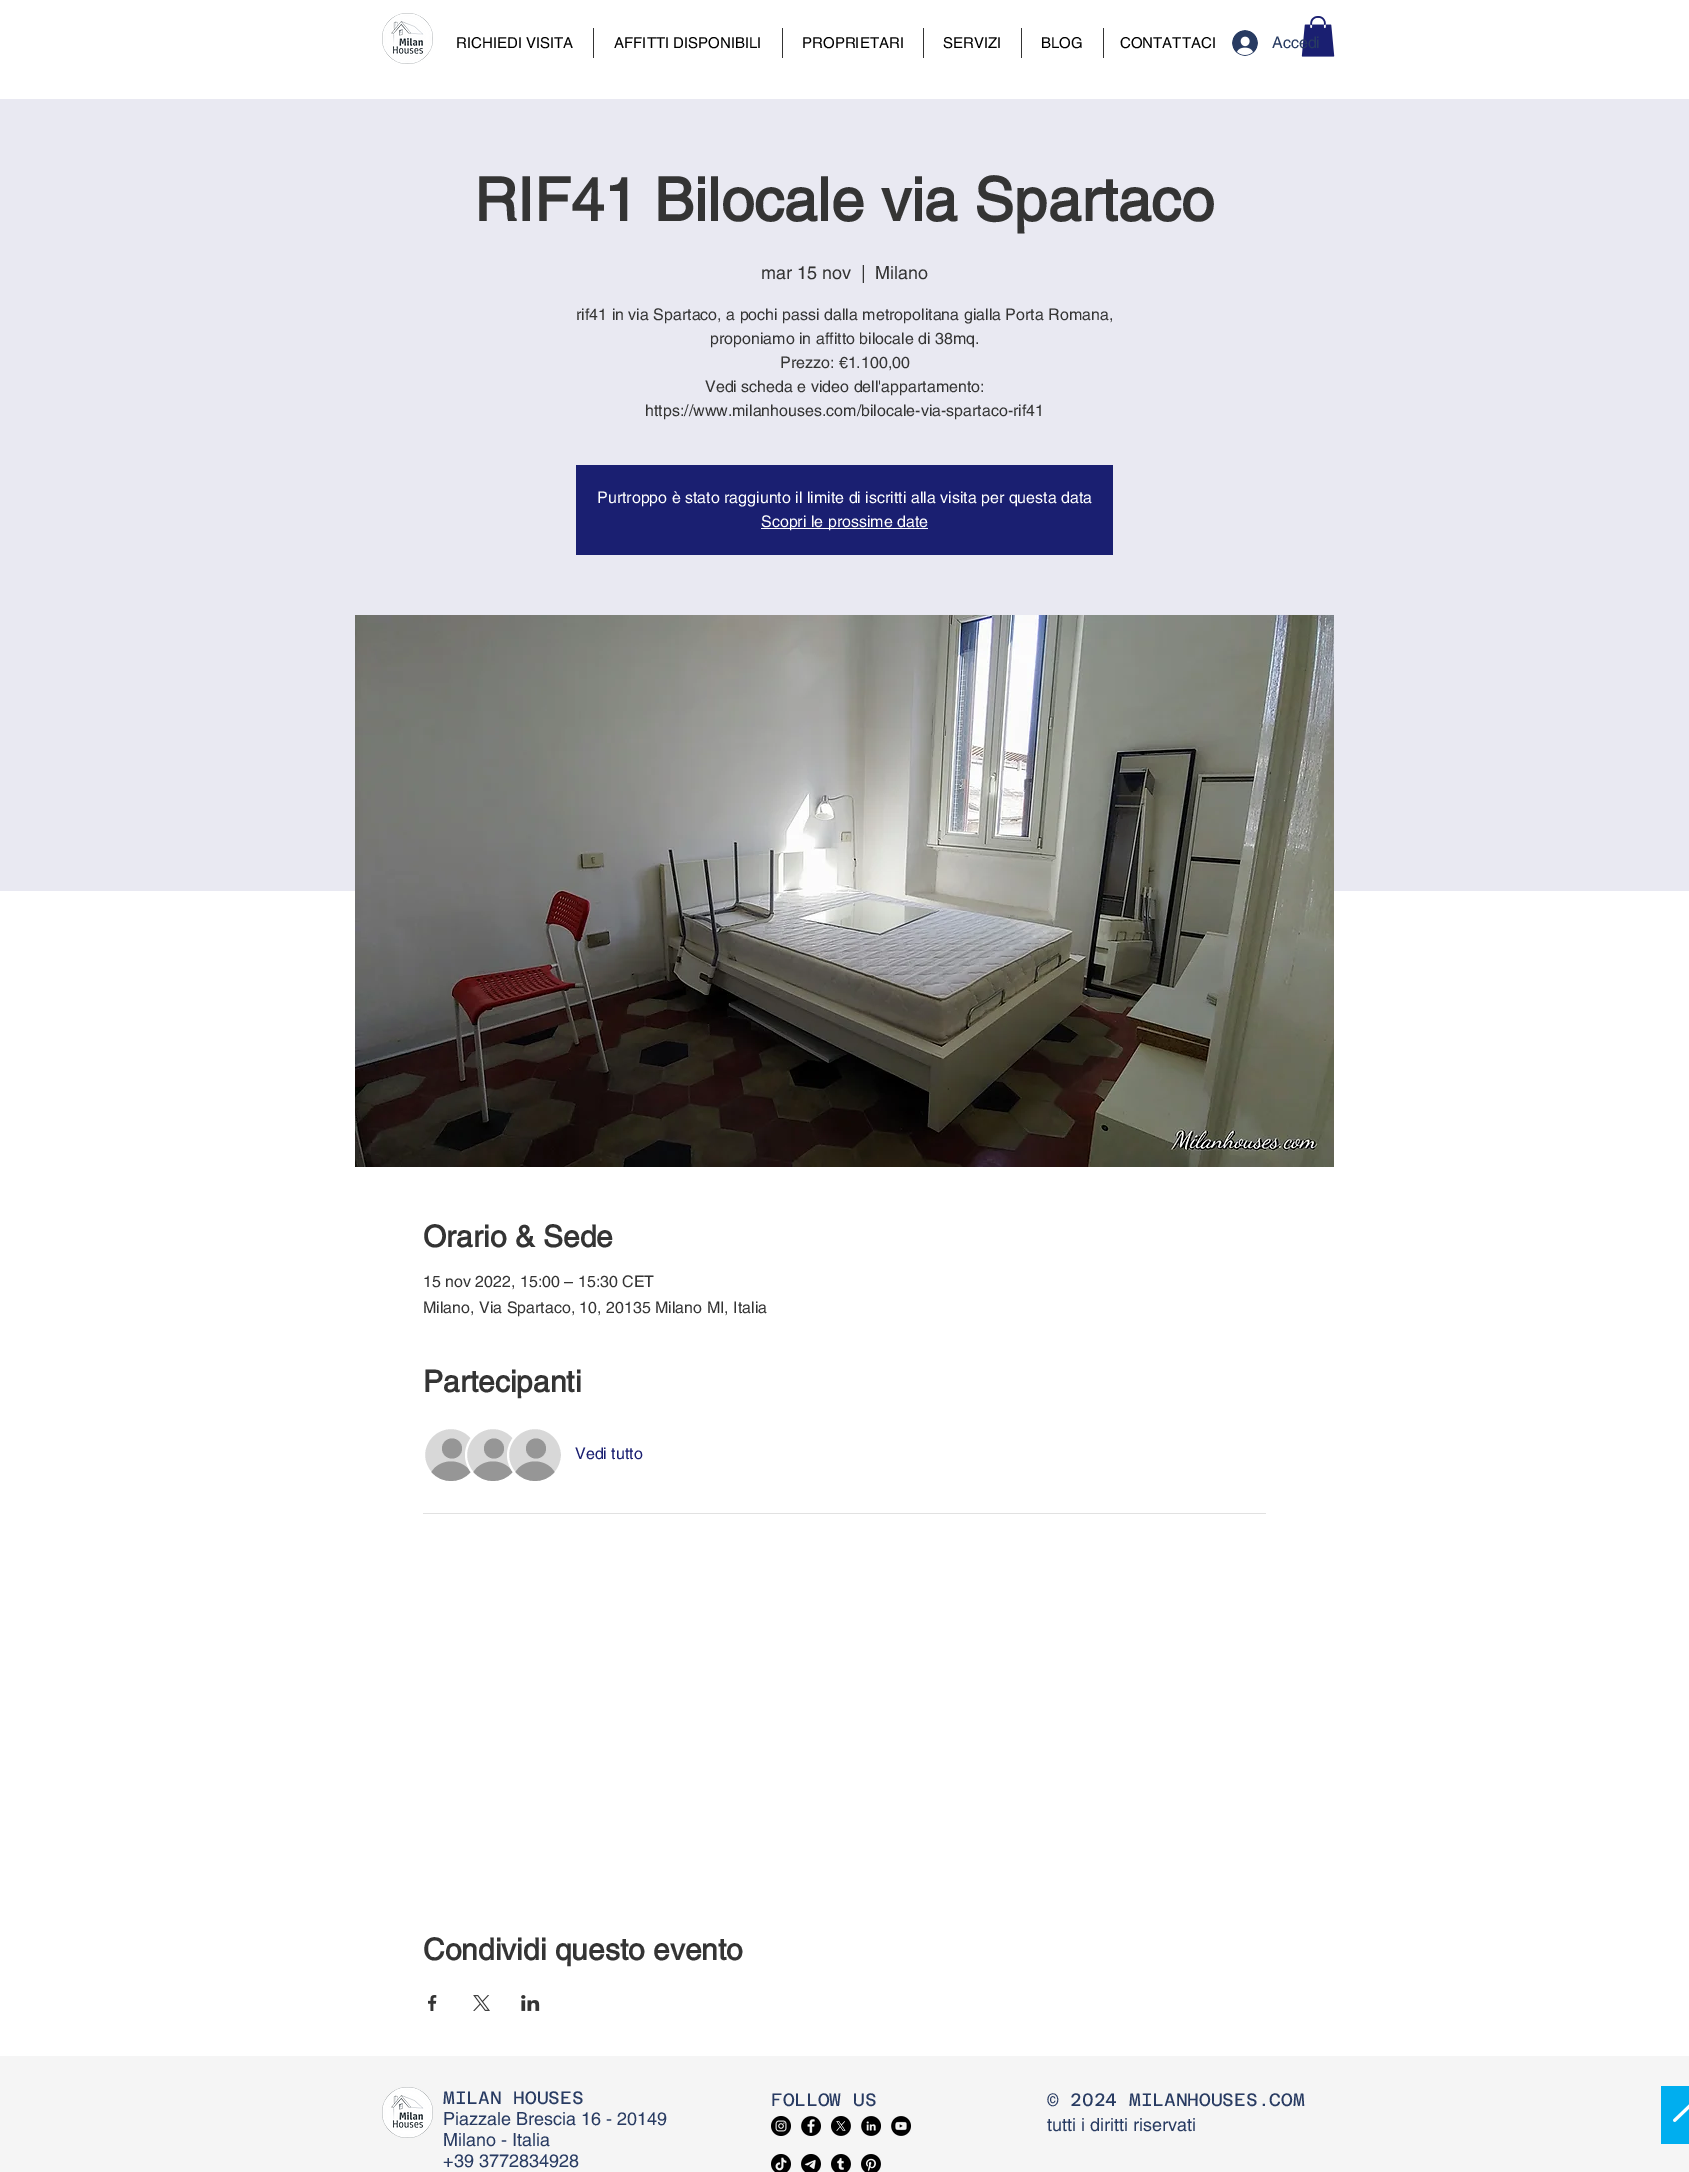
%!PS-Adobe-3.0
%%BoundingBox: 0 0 1689 2172
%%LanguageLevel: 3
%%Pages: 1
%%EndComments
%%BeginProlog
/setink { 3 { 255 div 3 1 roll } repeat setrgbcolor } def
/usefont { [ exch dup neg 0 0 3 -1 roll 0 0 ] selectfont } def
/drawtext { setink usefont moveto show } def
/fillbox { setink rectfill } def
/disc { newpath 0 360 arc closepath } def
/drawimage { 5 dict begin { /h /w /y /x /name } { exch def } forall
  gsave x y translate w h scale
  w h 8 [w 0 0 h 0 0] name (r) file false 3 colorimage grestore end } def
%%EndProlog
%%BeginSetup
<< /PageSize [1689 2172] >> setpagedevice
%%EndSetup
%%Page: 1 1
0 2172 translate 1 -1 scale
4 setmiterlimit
0 0 1689 2172 255 255 255 fillbox
(assets/img1.rgb) 382 13 51 51 drawimage
(RICHIEDI VISITA) 456 48 /helvetica-Regular 15 0 0 0 drawtext
593 28 1 30 52 52 52 fillbox
(AFFITTI DISPONIBILI) 614 48 /helvetica-Regular 15 0 0 0 drawtext
782 28 1 30 52 52 52 fillbox
(PROPRIETARI) 802 48 /helvetica-Regular 15 0 0 0 drawtext
923 28 1 30 52 52 52 fillbox
(SERVIZI) 943 48 /helvetica-Regular 15 0 0 0 drawtext
1021 28 1 30 52 52 52 fillbox
(BLOG) 1041 48 /helvetica-Regular 15 0 0 0 drawtext
1103 28 1 30 52 52 52 fillbox
(CONTATTACI) 1120 48 /helvetica-Regular 15 0 0 0 drawtext
(assets/img2.rgb) 1301 16 34 41 drawimage
(assets/img3.rgb) 1232 30 26 26 drawimage
(Accedi) 1272 48 /helvetica-Regular 16 40 59 98 drawtext
0 99 1689 792 233 233 242 fillbox
(RIF41 Bilocale via Spartaco) 474 221 /helvetica-Bold 60 52 52 52 drawtext
(mar 15 nov) 761 279 /helvetica-Regular 18 52 52 52 drawtext
(|) 861 279 /helvetica-Regular 18 52 52 52 drawtext
(Milano) 875 279 /helvetica-Regular 18 52 52 52 drawtext
(rif41 in via Spartaco, a pochi passi dalla metropolitana gialla Porta Romana,) 576 320 /helvetica-Regular 16 52 52 52 drawtext
(proponiamo in affitto bilocale di 38mq.) 710 344 /helvetica-Regular 16 52 52 52 drawtext
(Prezzo: €1.100,00) 780 368 /helvetica-Regular 16 52 52 52 drawtext
(Vedi scheda e video dell'appartamento:) 705 392 /helvetica-Regular 16 52 52 52 drawtext
(https://www.milanhouses.com/bilocale-via-spartaco-rif41) 645 416 /helvetica-Regular 16 52 52 52 drawtext
576 465 537 90 26 31 113 fillbox
(Purtroppo è stato raggiunto il limite di iscritti alla visita per questa data) 597 503 /helvetica-Regular 16 255 255 255 drawtext
761 528 167 1 255 255 255 fillbox
(Scopri le prossime date) 761 527 /helvetica-Regular 16 255 255 255 drawtext
(assets/img4.rgb) 355 615 979 552 drawimage
(Orario & Sede) 423 1247 /helvetica-Bold 30 52 52 52 drawtext
(15 nov 2022, 15:00 – 15:30 CET) 423 1287 /helvetica-Regular 16 52 52 52 drawtext
(Milano, Via Spartaco, 10, 20135 Milano MI, Italia) 423 1313 /helvetica-Regular 16 52 52 52 drawtext
(Partecipanti) 423 1392 /helvetica-Bold 30 52 52 52 drawtext
216 216 216 setink
451 1455 27 disc gsave fill grestore
255 255 255 setink
2 setlinewidth
stroke
150 150 150 setink
452 1448.5 10 disc fill
470.5 1472 moveto 460.5 1484 441.5 1484 431.5 1472 curveto 440 1458 462 1458 470.5 1472 curveto closepath fill
216 216 216 setink
493 1455 27 disc gsave fill grestore
255 255 255 setink
stroke
150 150 150 setink
494 1448.5 10 disc fill
512.5 1472 moveto 502.5 1484 483.5 1484 473.5 1472 curveto 482 1458 504 1458 512.5 1472 curveto closepath fill
216 216 216 setink
535 1455 27 disc gsave fill grestore
255 255 255 setink
stroke
150 150 150 setink
536 1448.5 10 disc fill
554.5 1472 moveto 544.5 1484 525.5 1484 515.5 1472 curveto 524 1458 546 1458 554.5 1472 curveto closepath fill
(Vedi tutto) 575 1459 /helvetica-Regular 16 26 31 113 drawtext
423 1513 843 1 225 225 225 fillbox
(Condividi questo evento) 423 1960 /helvetica-Bold 30 52 52 52 drawtext
(assets/img5.rgb) 428 1995 9 16 drawimage
(assets/img6.rgb) 473 1995 17 16 drawimage
(assets/img7.rgb) 521 1995 19 16 drawimage
0 2056 1689 116 245 245 245 fillbox
(assets/img8.rgb) 382 2087 51 51 drawimage
(MILAN HOUSES) 443 2104 /AzeretMono-Regular 18 40 59 98 drawtext
(Piazzale Brescia 16 - 20149) 443 2125 /helvetica-Regular 18 40 59 98 drawtext
(Milano - Italia) 443 2146 /helvetica-Regular 18 40 59 98 drawtext
(+39 3772834928) 443 2167 /helvetica-Regular 18 40 59 98 drawtext
(FOLLOW US) 771 2106 /AzeretMono-Regular 18 40 59 98 drawtext
(assets/img9.rgb) 771 2116 20 20 drawimage
(assets/img10.rgb) 801 2116 20 20 drawimage
(assets/img11.rgb) 831 2116 20 20 drawimage
(assets/img12.rgb) 861 2116 20 20 drawimage
(assets/img13.rgb) 891 2116 20 20 drawimage
(assets/img14.rgb) 771 2154 20 18 drawimage
(assets/img15.rgb) 801 2154 20 18 drawimage
(assets/img16.rgb) 831 2154 20 18 drawimage
(assets/img17.rgb) 861 2154 20 18 drawimage
(© 2024 MILANHOUSES.COM) 1047 2106 /AzeretMono-Regular 18 40 59 98 drawtext
(tutti i diritti riservati) 1047 2131 /helvetica-Regular 18 40 59 98 drawtext
1661 2086 28 58 0 174 239 fillbox
(assets/img18.rgb) 1673 2104 16 18 drawimage
showpage
%%EOF
